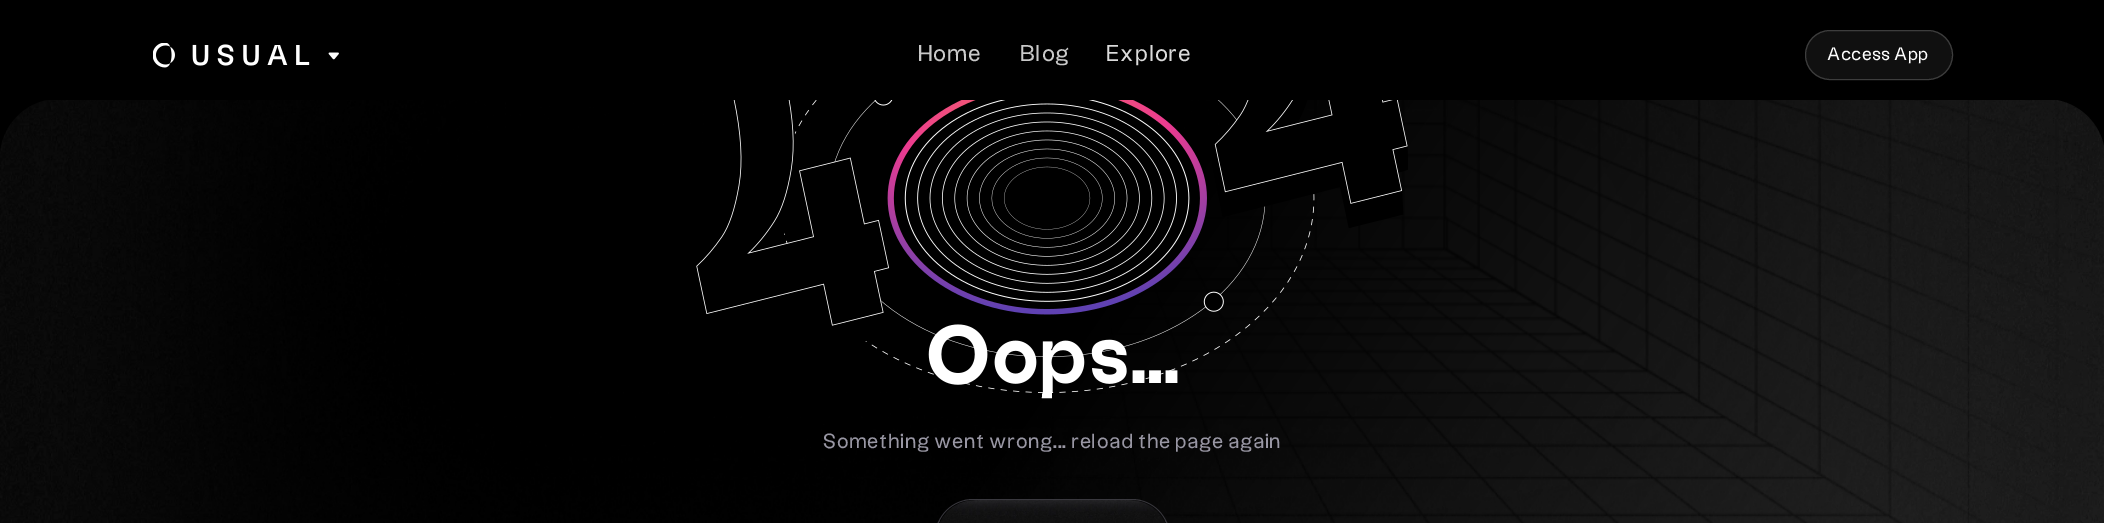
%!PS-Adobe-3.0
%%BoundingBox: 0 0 2104 523
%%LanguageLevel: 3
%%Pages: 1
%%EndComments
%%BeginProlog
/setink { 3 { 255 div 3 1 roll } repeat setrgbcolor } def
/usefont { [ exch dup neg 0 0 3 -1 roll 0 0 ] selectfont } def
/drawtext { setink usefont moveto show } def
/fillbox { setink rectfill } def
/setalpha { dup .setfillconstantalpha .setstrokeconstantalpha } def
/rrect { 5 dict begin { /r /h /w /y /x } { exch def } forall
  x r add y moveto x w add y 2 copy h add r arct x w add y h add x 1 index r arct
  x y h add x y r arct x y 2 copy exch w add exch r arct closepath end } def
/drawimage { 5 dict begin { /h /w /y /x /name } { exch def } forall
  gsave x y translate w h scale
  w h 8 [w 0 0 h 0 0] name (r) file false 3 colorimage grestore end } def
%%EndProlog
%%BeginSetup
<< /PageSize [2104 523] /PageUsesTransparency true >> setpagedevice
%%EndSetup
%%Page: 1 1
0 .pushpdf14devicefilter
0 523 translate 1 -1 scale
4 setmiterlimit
0 0 2104 523 255 255 255 fillbox
gsave 0 100 moveto 2104 100 lineto 2104 523 lineto 0 523 lineto closepath clip newpath
<< /ShadingType 2 /ColorSpace /DeviceRGB /Coords [223 -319 1882 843] /Extend [true true] /Function << /FunctionType 3 /Domain [0 1] /Functions [<< /FunctionType 2 /Domain [0 1] /C0 [0 0 0] /C1 [0 0 0] /N 1 >> << /FunctionType 2 /Domain [0 1] /C0 [0 0 0] /C1 [0.141 0.141 0.141] /N 1 >> << /FunctionType 2 /Domain [0 1] /C0 [0.141 0.141 0.141] /C1 [0.141 0.141 0.141] /N 1 >>] /Bounds [0.53 0.92] /Encode [0 1 0 1 0 1] >> >> shfill grestore
0 0 2104 100 0 0 0 fillbox
(assets/img1.rgb) 153 43 157 25 drawimage
(assets/img2.rgb) 328 52 11 8 drawimage
/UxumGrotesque-Regular 22.5 usefont
201 201 201 setink
918 61 moveto 0.5 0 (Home) ashow
1020 61 moveto 0.5 0 (Blog) ashow
219 219 219 setink
1106 61 moveto 0.5 0 (Explore) ashow
16 16 16 setink
1805 30 148 50 25 rrect fill
0.19 setalpha
255 255 255 setink
1805.5 30.5 147 49 24.5 rrect stroke
/UxumGrotesque-Regular 17.5 usefont
1 setalpha
1827 60 moveto 0.25 0 (Access App) ashow
(assets/img3.rgb) 0 100 2104 423 drawimage
0 0 0 setink
52 99 moveto 0 99 lineto 0 151 lineto 3 124 25 102 52 99 curveto closepath eofill
2052 99 moveto 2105 99 lineto 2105 151 lineto 2102 124 2080 102 2052 99 curveto closepath eofill
(Oops...) 925 383 /UxumGrotesque-Bold 80 255 255 255 drawtext
(assets/img4.rgb) 696 100 712 293 drawimage
/UxumGrotesque-Regular 20 usefont
153 151 164 setink
823 448 moveto 0.6 0 (Something went wrong... reload the page again) ashow
57 56 62 setink
935.5 499.5 234 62 37.5 rrect stroke
(assets/img5.rgb) 940 500 225 23 drawimage
.poppdf14devicefilter showpage
%%EOF
